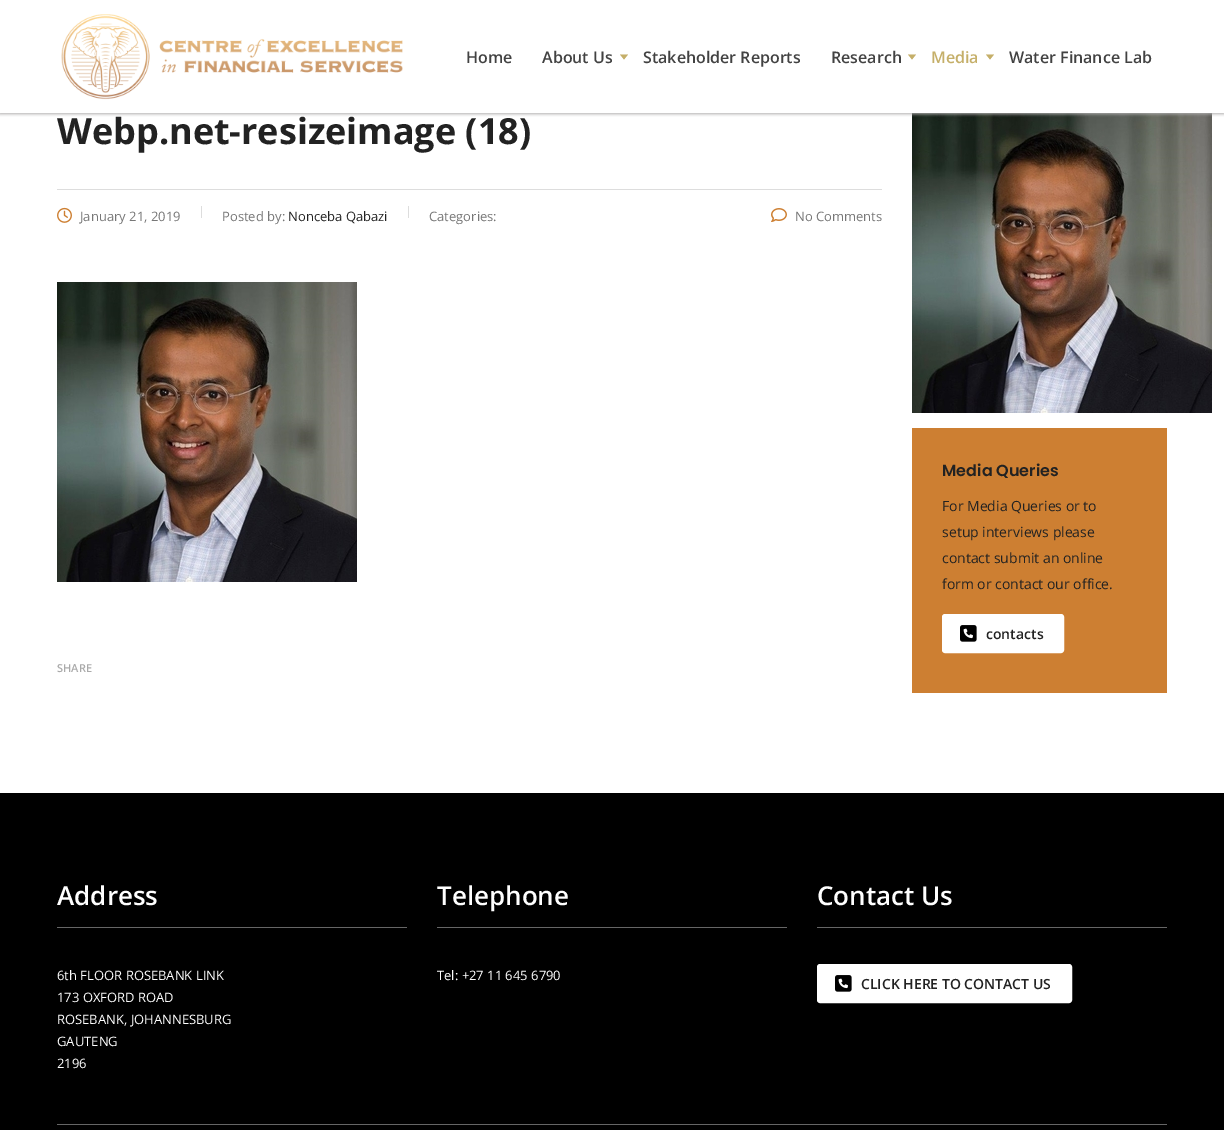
%!PS-Adobe-3.0
%%BoundingBox: 0 0 1224 1130
%%LanguageLevel: 3
%%Pages: 1
%%EndComments
%%BeginProlog
/setink { 3 { 255 div 3 1 roll } repeat setrgbcolor } def
/usefont { [ exch dup neg 0 0 3 -1 roll 0 0 ] selectfont } def
/drawtext { setink usefont moveto show } def
/fillbox { setink rectfill } def
/setalpha { dup .setfillconstantalpha .setstrokeconstantalpha } def
/rrect { 5 dict begin { /r /h /w /y /x } { exch def } forall
  x r add y moveto x w add y 2 copy h add r arct x w add y h add x 1 index r arct
  x y h add x y r arct x y 2 copy exch w add exch r arct closepath end } def
/softshadow { 12 dict begin { /a /b /q /h /w /y /x } { exch def } forall gsave /was 0 def
  9 -2 -9 { dup b mul 4 div /e exch def 1 sub .425 mul 2.718 exch exp 1 add a .99 .min exch div /now exch def
    1 1 now sub 1 was sub div sub setalpha /was now def
    w h .min e 2 mul add 0 gt { x e sub y e sub w e 2 mul add h e 2 mul add
      q e add b .6 mul add w h .min 2 div e add .min 0 .max rrect fill } if } for grestore end } def
/drawimage { 5 dict begin { /h /w /y /x /name } { exch def } forall
  gsave x y translate w h scale
  w h 8 [w 0 0 h 0 0] name (r) file false 3 colorimage grestore end } def
%%EndProlog
%%BeginSetup
<< /PageSize [1224 1130] /PageUsesTransparency true >> setpagedevice
%%EndSetup
%%Page: 1 1
0 .pushpdf14devicefilter
0 1130 translate 1 -1 scale
4 setmiterlimit
0 0 1224 1130 255 255 255 fillbox
(assets/img4.rgb) 912 113 300 300 drawimage
gsave
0 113 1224 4 rectclip
175 174 174 setink
0 1 1224 113 0 1.5 1 softshadow
grestore
(assets/img1.rgb) 61 14 342 86 drawimage
(Home) 466 63 /OpenSans-SemiBold 16 66 66 66 drawtext
(About Us) 542 63 /OpenSans-SemiBold 16 66 66 66 drawtext
197 175 105 setink
620 54.5 moveto 628 54.5 lineto 624 59.5 lineto closepath fill
(Stakeholder Reports) 643 63 /OpenSans-SemiBold 16 66 66 66 drawtext
(Research) 831 63 /OpenSans-SemiBold 16 66 66 66 drawtext
197 175 105 setink
908 54.5 moveto 916 54.5 lineto 912 59.5 lineto closepath fill
(Media) 931 63 /OpenSans-SemiBold 16 197 175 105 drawtext
986 54.5 moveto 994 54.5 lineto 990 59.5 lineto closepath fill
(Water Finance Lab) 1009 63 /OpenSans-SemiBold 16 66 66 66 drawtext
(Webp.net-resizeimage \(18\)) 57 144 /OpenSans-Bold 36 34 34 34 drawtext
57 189 825 1 221 221 221 fillbox
(assets/img2.rgb) 57 207 15 16 drawimage
(January 21, 2019) 80 221 /OpenSans-Regular 13 119 119 119 drawtext
201 206 1 12 221 221 221 fillbox
(Posted by:) 222 221 /OpenSans-Regular 13 119 119 119 drawtext
(Nonceba Qabazi) 288 221 /OpenSans-Regular 13 34 34 34 drawtext
408 206 1 12 221 221 221 fillbox
(Categories:) 429 221 /OpenSans-Regular 13 119 119 119 drawtext
(assets/img3.rgb) 771 208 16 14 drawimage
(No Comments) 795 221 /OpenSans-Regular 13 119 119 119 drawtext
(assets/img4.rgb) 57 282 300 300 drawimage
(SHARE) 57 672 /OpenSans-SemiBold 11 170 170 170 drawtext
912 428 255 265 205 127 50 fillbox
(Media Queries) 942 476 /Poppins-SemiBold 16 34 34 34 drawtext
(For Media Queries or to) 942 511 /OpenSans-Regular 14 34 34 34 drawtext
(setup interviews please) 942 537 /OpenSans-Regular 14 34 34 34 drawtext
(contact submit an online) 942 563 /OpenSans-Regular 14 34 34 34 drawtext
(form or contact our office.) 942 589 /OpenSans-Regular 14 34 34 34 drawtext
255 255 255 setink
943.5 615.5 119 36 1.5 rrect gsave fill grestore
3 setlinewidth
stroke
(assets/img5.rgb) 960 625 17 17 drawimage
(contacts) 986 639 /OpenSans-SemiBold 14 34 34 34 drawtext
0 793 1224 337 0 0 0 fillbox
57 927 350 1 102 102 102 fillbox
(Address) 57 905 /OpenSans-SemiBold 26 255 255 255 drawtext
(6th FLOOR ROSEBANK LINK) 57 980 /OpenSans-Regular 13 255 255 255 drawtext
(173 OXFORD ROAD) 57 1002 /OpenSans-Regular 13 255 255 255 drawtext
(ROSEBANK, JOHANNESBURG) 57 1024 /OpenSans-Regular 13 255 255 255 drawtext
(GAUTENG) 57 1046 /OpenSans-Regular 13 255 255 255 drawtext
(2196) 57 1068 /OpenSans-Regular 13 255 255 255 drawtext
437 927 350 1 102 102 102 fillbox
(Telephone) 437 905 /OpenSans-SemiBold 26 255 255 255 drawtext
(Tel: +27 11 645 6790) 437 980 /OpenSans-Regular 13 255 255 255 drawtext
817 927 350 1 102 102 102 fillbox
(Contact Us) 817 905 /OpenSans-SemiBold 26 255 255 255 drawtext
818.5 965.5 252 36 1.5 rrect gsave fill grestore
stroke
(assets/img5.rgb) 835 975 17 17 drawimage
(CLICK HERE TO CONTACT US) 861 989 /OpenSans-SemiBold 14 34 34 34 drawtext
57 1124 1110 1 102 102 102 fillbox
.poppdf14devicefilter showpage
%%EOF
